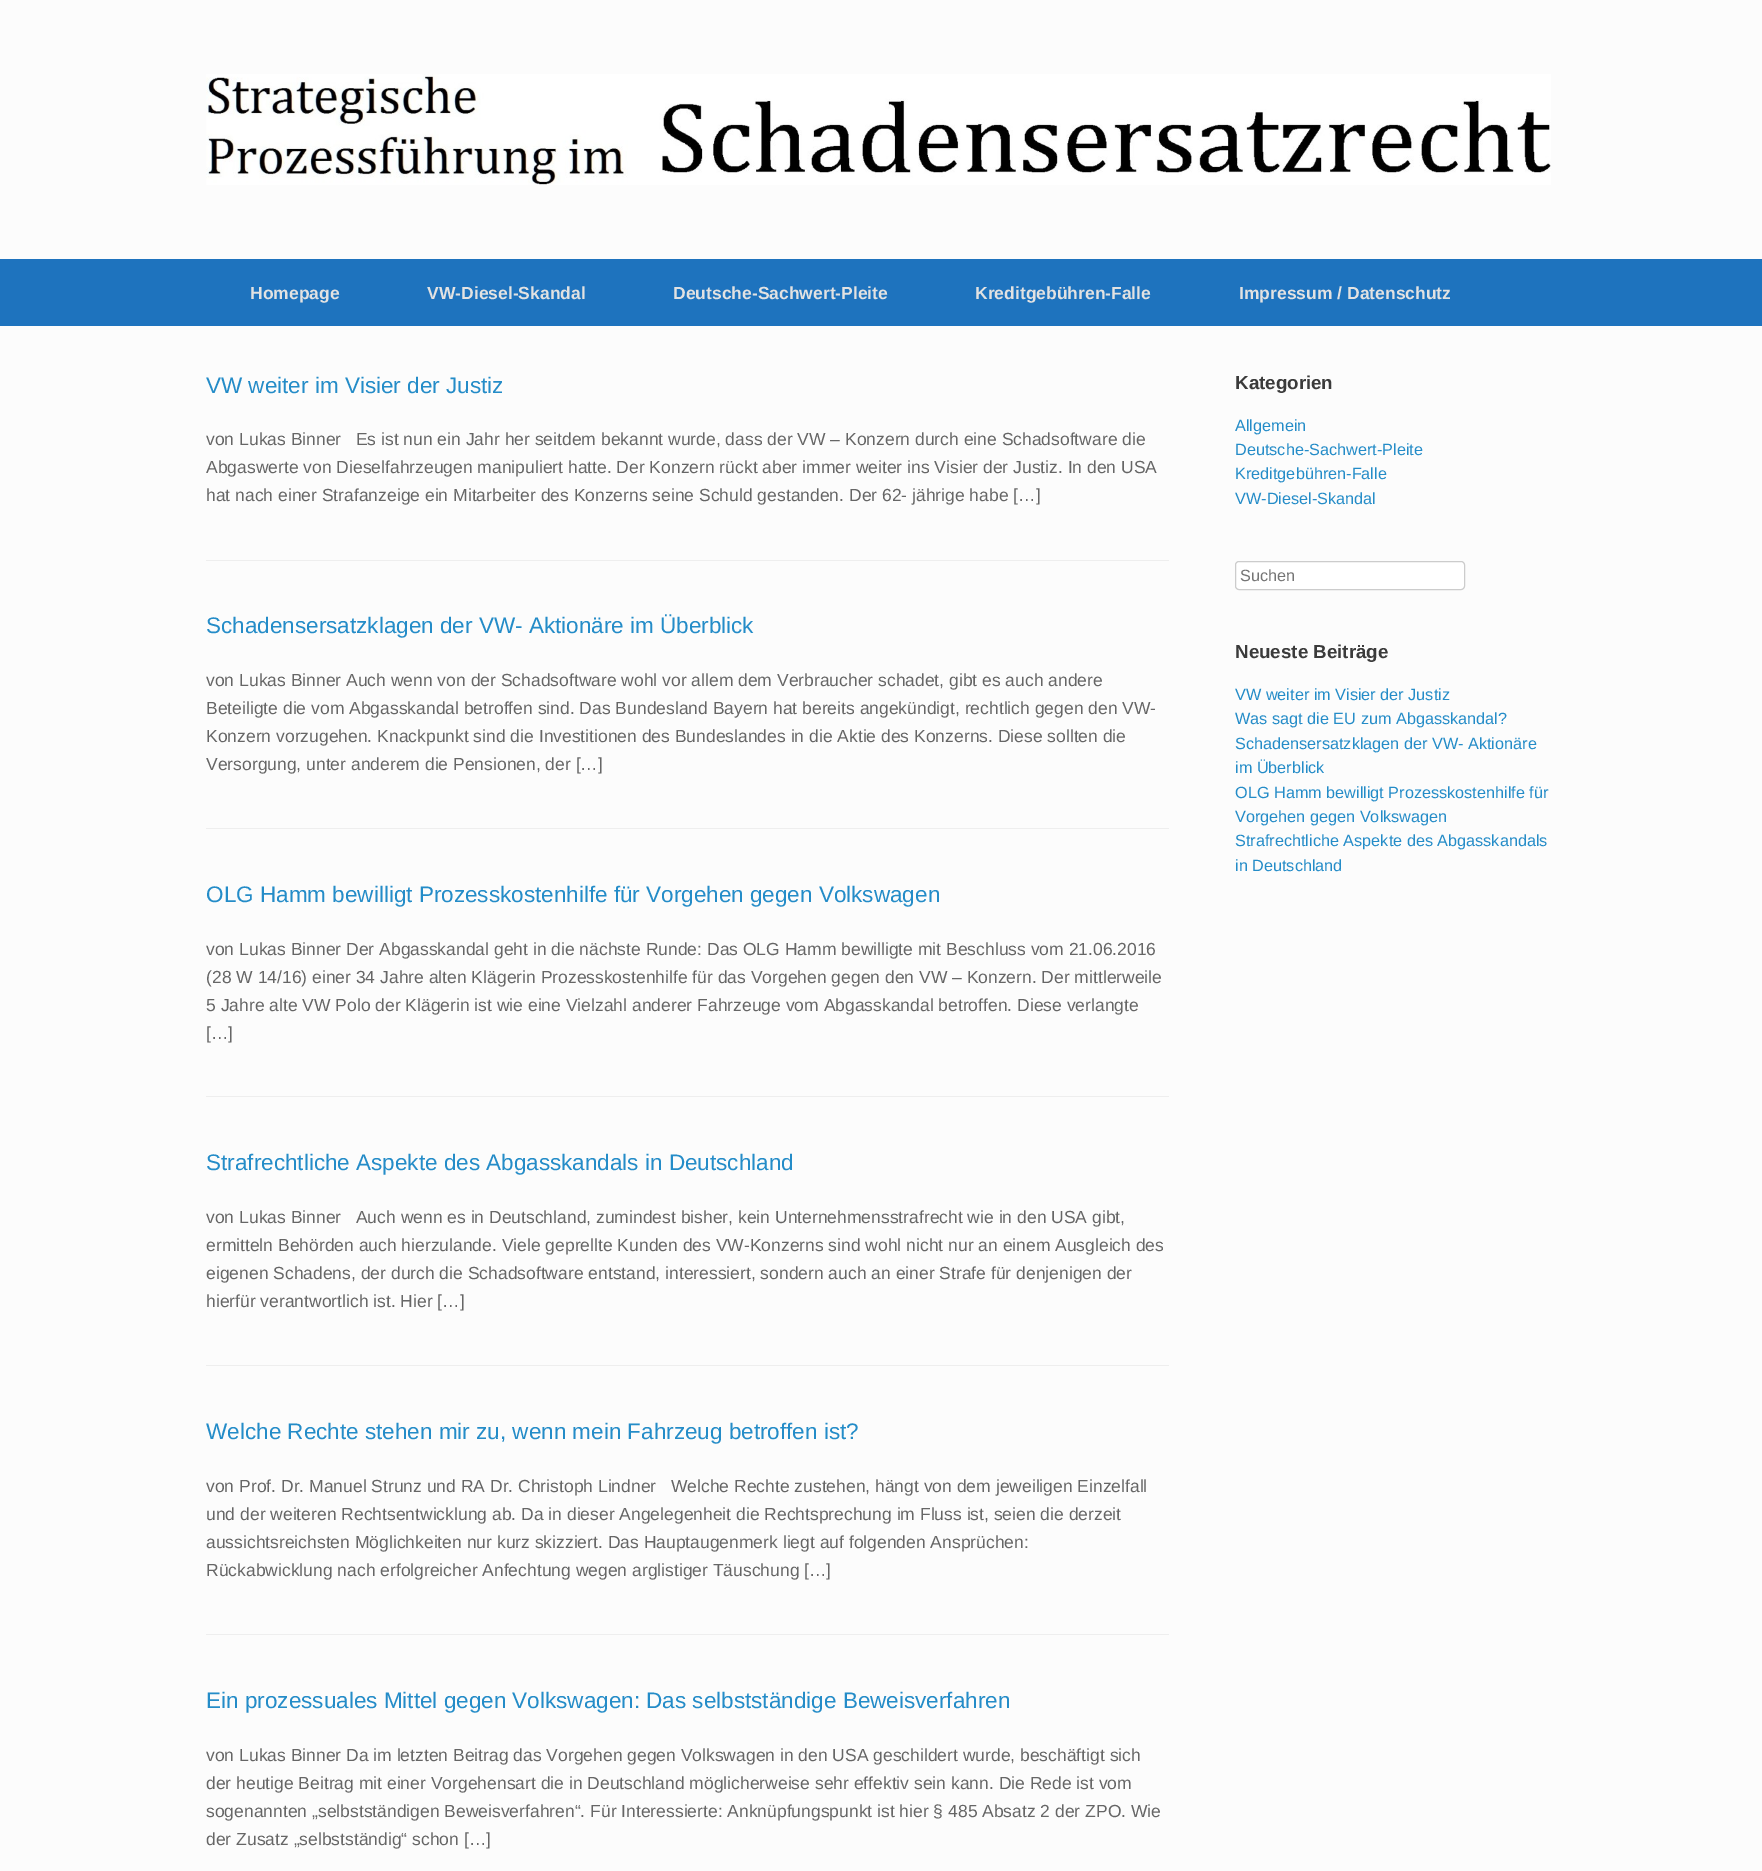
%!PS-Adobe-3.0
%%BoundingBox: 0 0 1762 1871
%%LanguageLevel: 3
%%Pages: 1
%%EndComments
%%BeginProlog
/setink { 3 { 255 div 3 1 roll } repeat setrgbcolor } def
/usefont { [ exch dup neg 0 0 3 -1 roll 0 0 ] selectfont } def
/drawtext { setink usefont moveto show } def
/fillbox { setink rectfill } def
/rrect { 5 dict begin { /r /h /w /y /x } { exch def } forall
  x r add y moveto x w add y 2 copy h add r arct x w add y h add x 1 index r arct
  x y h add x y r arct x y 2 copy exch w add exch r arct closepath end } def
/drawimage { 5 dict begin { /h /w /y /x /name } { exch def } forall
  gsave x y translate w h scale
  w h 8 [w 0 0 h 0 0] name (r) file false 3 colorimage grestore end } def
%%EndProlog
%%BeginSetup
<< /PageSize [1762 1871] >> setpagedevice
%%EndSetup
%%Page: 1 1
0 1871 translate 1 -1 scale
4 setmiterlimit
0 0 1762 1871 252 252 252 fillbox
(assets/img1.rgb) 206 74 1345 111 drawimage
0 259 1762 67 30 115 190 fillbox
(Homepage) 250 299 /LiberationSans-Bold 17.5 226 226 226 drawtext
(VW-Diesel-Skandal) 427 299 /LiberationSans-Bold 17.5 226 226 226 drawtext
(Deutsche-Sachwert-Pleite) 673 299 /LiberationSans-Bold 17.5 226 226 226 drawtext
(Kreditgebühren-Falle) 975 299 /LiberationSans-Bold 17.5 226 226 226 drawtext
(Impressum / Datenschutz) 1239 299 /LiberationSans-Bold 17.5 226 226 226 drawtext
206 560 963 1 238 238 238 fillbox
(VW weiter im Visier der Justiz) 206 393 /LiberationSans-Regular 22.5 36 140 200 drawtext
(von Lukas Binner   Es ist nun ein Jahr her seitdem bekannt wurde, dass der VW – Konzern durch eine Schadsoftware die) 206 445 /LiberationSans-Regular 17.5 102 102 102 drawtext
(Abgaswerte von Dieselfahrzeugen manipuliert hatte. Der Konzern rückt aber immer weiter ins Visier der Justiz. In den USA) 206 473 /LiberationSans-Regular 17.5 102 102 102 drawtext
(hat nach einer Strafanzeige ein Mitarbeiter des Konzerns seine Schuld gestanden. Der 62- jährige habe […]) 206 501 /LiberationSans-Regular 17.5 102 102 102 drawtext
206 828 963 1 238 238 238 fillbox
(Schadensersatzklagen der VW- Aktionäre im Überblick) 206 633 /LiberationSans-Regular 22.5 36 140 200 drawtext
(von Lukas Binner Auch wenn von der Schadsoftware wohl vor allem dem Verbraucher schadet, gibt es auch andere) 206 686 /LiberationSans-Regular 17.5 102 102 102 drawtext
(Beteiligte die vom Abgasskandal betroffen sind. Das Bundesland Bayern hat bereits angekündigt, rechtlich gegen den VW-) 206 714 /LiberationSans-Regular 17.5 102 102 102 drawtext
(Konzern vorzugehen. Knackpunkt sind die Investitionen des Bundeslandes in die Aktie des Konzerns. Diese sollten die) 206 742 /LiberationSans-Regular 17.5 102 102 102 drawtext
(Versorgung, unter anderem die Pensionen, der […]) 206 770 /LiberationSans-Regular 17.5 102 102 102 drawtext
206 1096 963 1 238 238 238 fillbox
(OLG Hamm bewilligt Prozesskostenhilfe für Vorgehen gegen Volkswagen) 206 902 /LiberationSans-Regular 22.5 36 140 200 drawtext
(von Lukas Binner Der Abgasskandal geht in die nächste Runde: Das OLG Hamm bewilligte mit Beschluss vom 21.06.2016) 206 955 /LiberationSans-Regular 17.5 102 102 102 drawtext
(\(28 W 14/16\) einer 34 Jahre alten Klägerin Prozesskostenhilfe für das Vorgehen gegen den VW – Konzern. Der mittlerweile) 206 983 /LiberationSans-Regular 17.5 102 102 102 drawtext
(5 Jahre alte VW Polo der Klägerin ist wie eine Vielzahl anderer Fahrzeuge vom Abgasskandal betroffen. Diese verlangte) 206 1011 /LiberationSans-Regular 17.5 102 102 102 drawtext
([…]) 206 1039 /LiberationSans-Regular 17.5 102 102 102 drawtext
206 1365 963 1 238 238 238 fillbox
(Strafrechtliche Aspekte des Abgasskandals in Deutschland) 206 1170 /LiberationSans-Regular 22.5 36 140 200 drawtext
(von Lukas Binner   Auch wenn es in Deutschland, zumindest bisher, kein Unternehmensstrafrecht wie in den USA gibt,) 206 1223 /LiberationSans-Regular 17.5 102 102 102 drawtext
(ermitteln Behörden auch hierzulande. Viele geprellte Kunden des VW-Konzerns sind wohl nicht nur an einem Ausgleich des) 206 1251 /LiberationSans-Regular 17.5 102 102 102 drawtext
(eigenen Schadens, der durch die Schadsoftware entstand, interessiert, sondern auch an einer Strafe für denjenigen der) 206 1279 /LiberationSans-Regular 17.5 102 102 102 drawtext
(hierfür verantwortlich ist. Hier […]) 206 1307 /LiberationSans-Regular 17.5 102 102 102 drawtext
206 1634 963 1 238 238 238 fillbox
(Welche Rechte stehen mir zu, wenn mein Fahrzeug betroffen ist?) 206 1439 /LiberationSans-Regular 22.5 36 140 200 drawtext
(von Prof. Dr. Manuel Strunz und RA Dr. Christoph Lindner   Welche Rechte zustehen, hängt von dem jeweiligen Einzelfall) 206 1492 /LiberationSans-Regular 17.5 102 102 102 drawtext
(und der weiteren Rechtsentwicklung ab. Da in dieser Angelegenheit die Rechtsprechung im Fluss ist, seien die derzeit) 206 1520 /LiberationSans-Regular 17.5 102 102 102 drawtext
(aussichtsreichsten Möglichkeiten nur kurz skizziert. Das Hauptaugenmerk liegt auf folgenden Ansprüchen:) 206 1548 /LiberationSans-Regular 17.5 102 102 102 drawtext
(Rückabwicklung nach erfolgreicher Anfechtung wegen arglistiger Täuschung […]) 206 1576 /LiberationSans-Regular 17.5 102 102 102 drawtext
(Ein prozessuales Mittel gegen Volkswagen: Das selbstständige Beweisverfahren) 206 1708 /LiberationSans-Regular 22.5 36 140 200 drawtext
(von Lukas Binner Da im letzten Beitrag das Vorgehen gegen Volkswagen in den USA geschildert wurde, beschäftigt sich) 206 1761 /LiberationSans-Regular 17.5 102 102 102 drawtext
(der heutige Beitrag mit einer Vorgehensart die in Deutschland möglicherweise sehr effektiv sein kann. Die Rede ist vom) 206 1789 /LiberationSans-Regular 17.5 102 102 102 drawtext
(sogenannten „selbstständigen Beweisverfahren“. Für Interessierte: Anknüpfungspunkt ist hier § 485 Absatz 2 der ZPO. Wie) 206 1817 /LiberationSans-Regular 17.5 102 102 102 drawtext
(der Zusatz „selbstständig“ schon […]) 206 1845 /LiberationSans-Regular 17.5 102 102 102 drawtext
(Kategorien) 1235 389 /LiberationSans-Bold 18.75 59 59 59 drawtext
(Allgemein) 1235 431 /LiberationSans-Regular 16.25 36 140 200 drawtext
(Deutsche-Sachwert-Pleite) 1235 455 /LiberationSans-Regular 16.25 36 140 200 drawtext
(Kreditgebühren-Falle) 1235 479 /LiberationSans-Regular 16.25 36 140 200 drawtext
(VW-Diesel-Skandal) 1235 504 /LiberationSans-Regular 16.25 36 140 200 drawtext
255 255 255 setink
1235.5 561.5 229 28 3.5 rrect gsave fill grestore
204 204 204 setink
stroke
(Suchen) 1240 581 /LiberationSans-Regular 16.25 117 117 117 drawtext
(Neueste Beiträge) 1235 658 /LiberationSans-Bold 18.75 59 59 59 drawtext
(VW weiter im Visier der Justiz) 1235 700 /LiberationSans-Regular 16.25 36 140 200 drawtext
(Was sagt die EU zum Abgasskandal?) 1235 724 /LiberationSans-Regular 16.25 36 140 200 drawtext
(Schadensersatzklagen der VW- Aktionäre) 1235 749 /LiberationSans-Regular 16.25 36 140 200 drawtext
(im Überblick) 1235 773 /LiberationSans-Regular 16.25 36 140 200 drawtext
(OLG Hamm bewilligt Prozesskostenhilfe für) 1235 798 /LiberationSans-Regular 16.25 36 140 200 drawtext
(Vorgehen gegen Volkswagen) 1235 822 /LiberationSans-Regular 16.25 36 140 200 drawtext
(Strafrechtliche Aspekte des Abgasskandals) 1235 846 /LiberationSans-Regular 16.25 36 140 200 drawtext
(in Deutschland) 1235 871 /LiberationSans-Regular 16.25 36 140 200 drawtext
showpage
%%EOF
